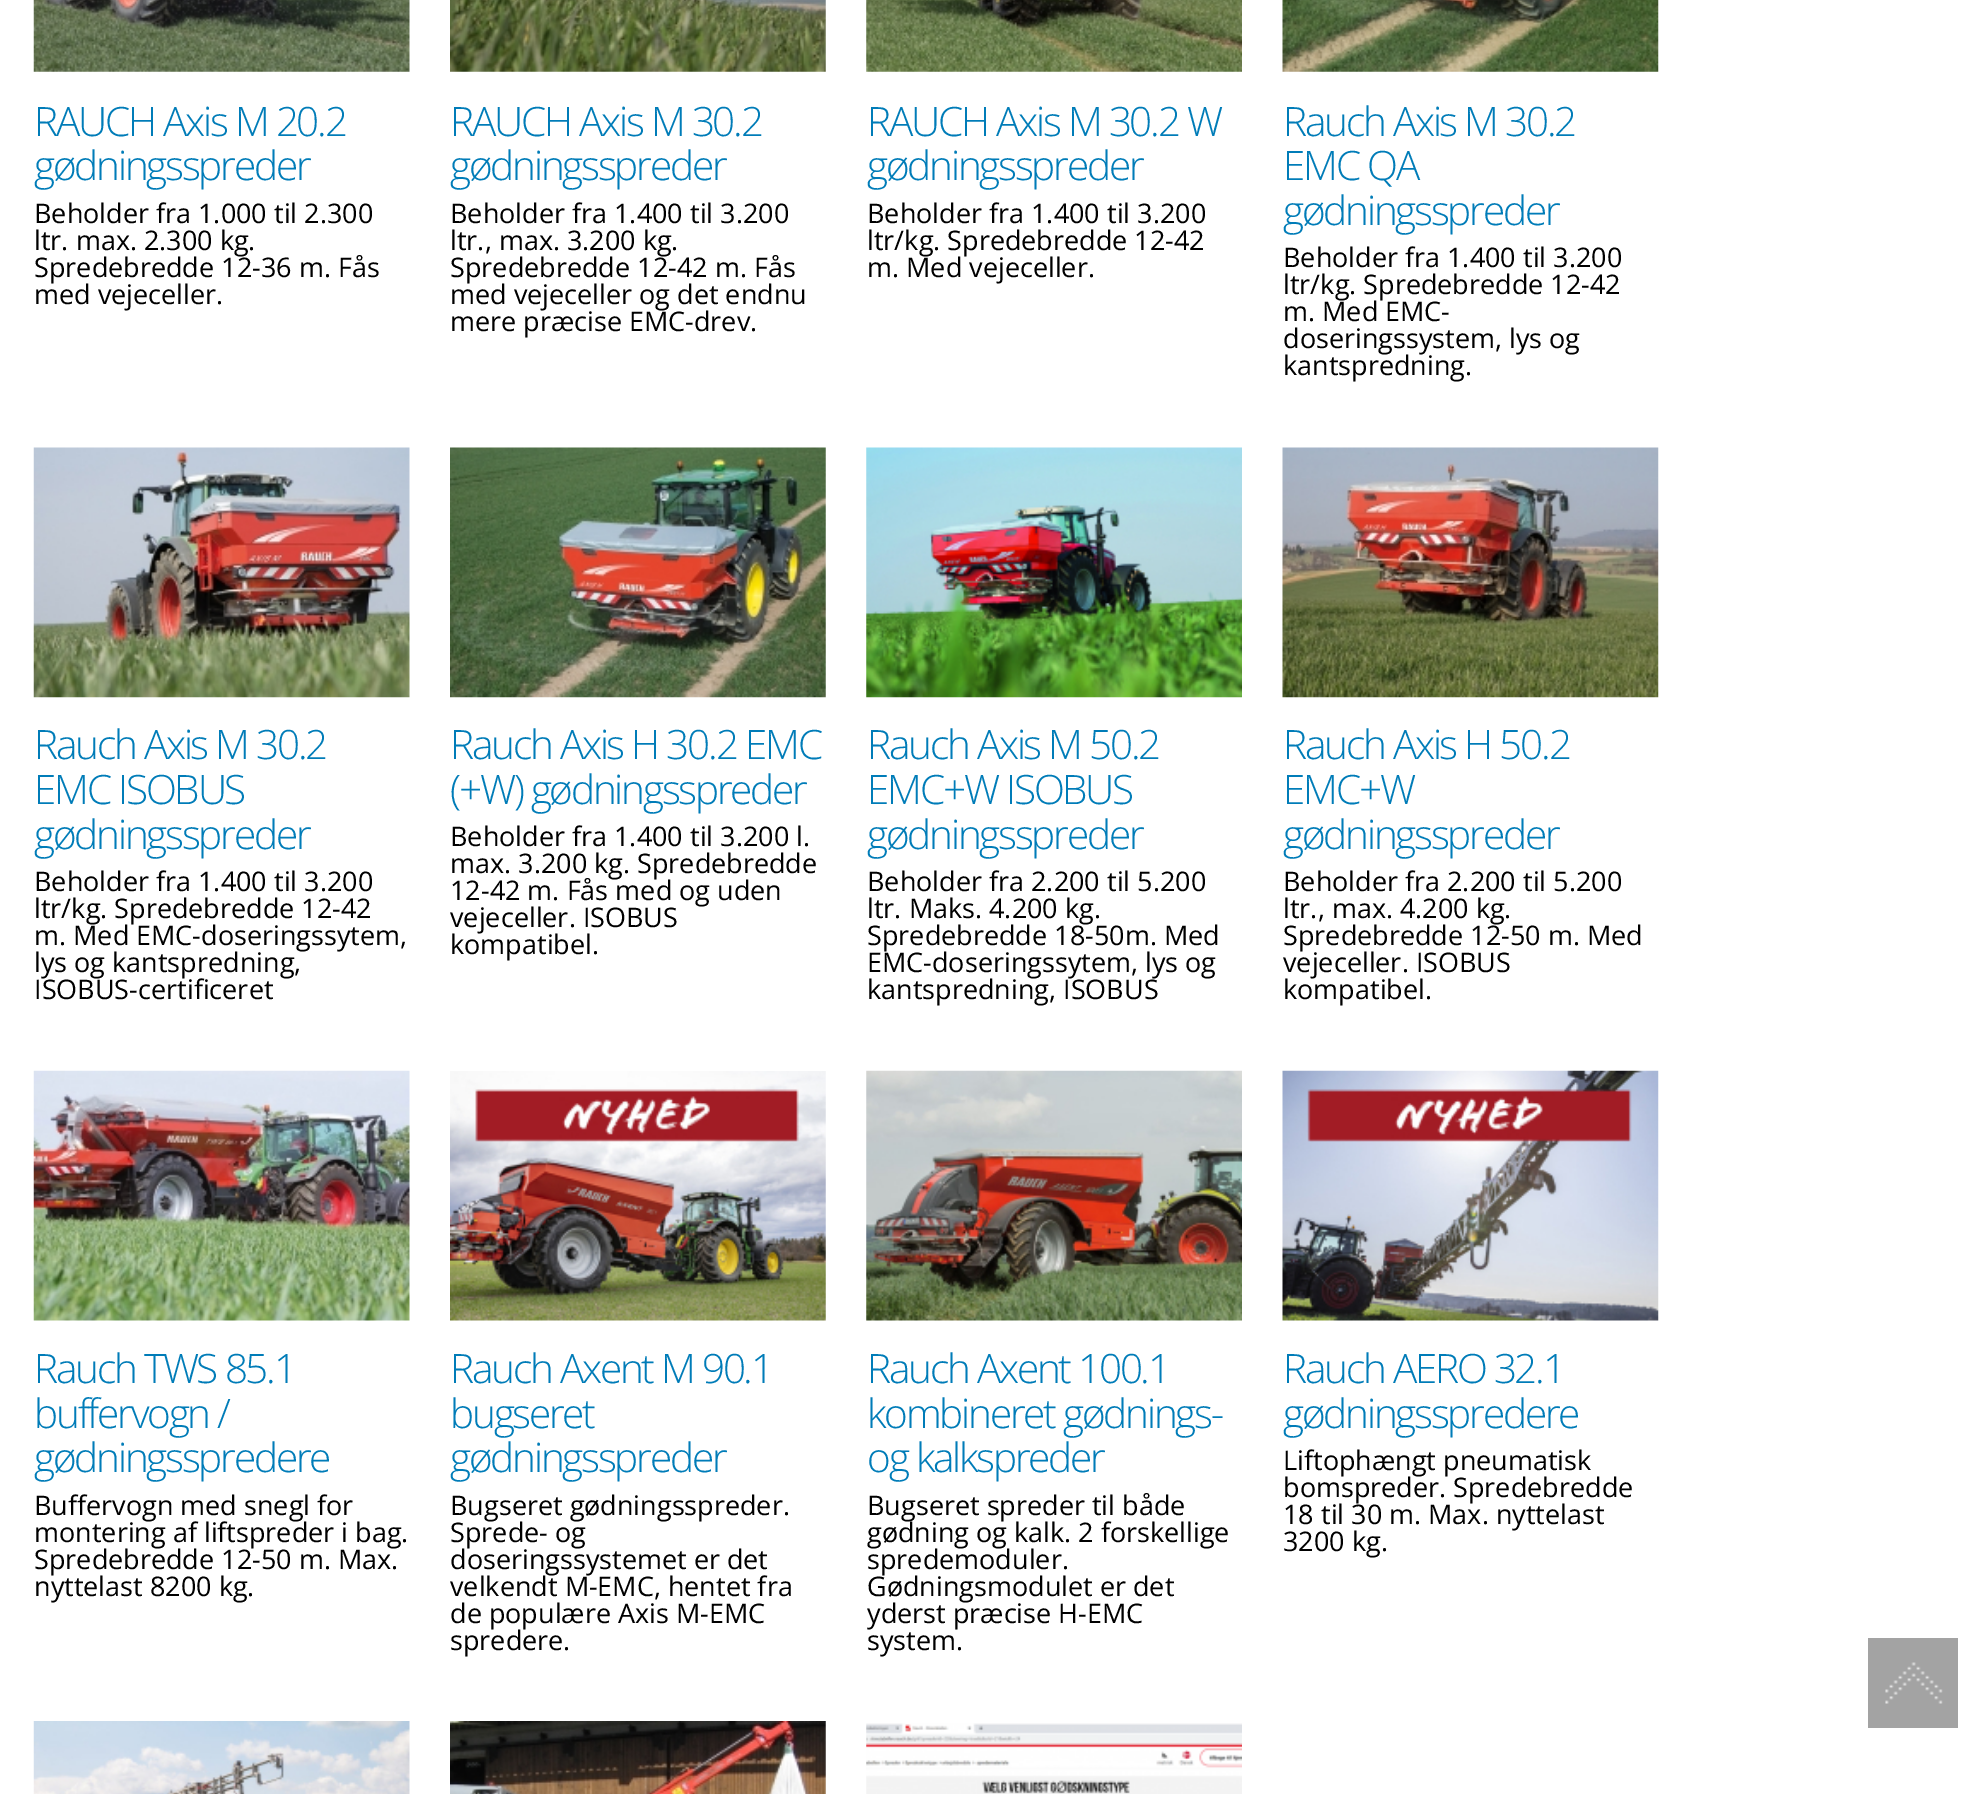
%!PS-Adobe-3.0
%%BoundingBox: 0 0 1979 1794
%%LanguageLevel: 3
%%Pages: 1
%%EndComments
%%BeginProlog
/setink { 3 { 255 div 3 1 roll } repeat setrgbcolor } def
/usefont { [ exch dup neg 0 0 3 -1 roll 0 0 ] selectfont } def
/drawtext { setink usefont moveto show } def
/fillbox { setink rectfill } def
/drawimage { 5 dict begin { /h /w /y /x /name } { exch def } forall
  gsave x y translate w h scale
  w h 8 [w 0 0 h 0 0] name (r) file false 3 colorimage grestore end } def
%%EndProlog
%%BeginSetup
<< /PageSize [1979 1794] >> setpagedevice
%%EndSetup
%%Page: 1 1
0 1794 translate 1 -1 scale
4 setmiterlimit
0 0 1979 1794 255 255 255 fillbox
(assets/img1.rgb) 33 0 377 72 drawimage
/OpenSans-Light 40.5 usefont
0 124 184 setink
34 136 moveto -2.25 0 (RAUCH Axis M 20.2) ashow
34 180 moveto -2.25 0 (gødningsspreder) ashow
(Beholder fra 1.000 til 2.300) 34 223 /OpenSans-Regular 27 0 0 0 drawtext
(ltr. max. 2.300 kg.) 34 250 /OpenSans-Regular 27 0 0 0 drawtext
(Spredebredde 12-36 m. Fås) 34 277 /OpenSans-Regular 27 0 0 0 drawtext
(med vejeceller.) 34 304 /OpenSans-Regular 27 0 0 0 drawtext
(assets/img2.rgb) 450 0 376 72 drawimage
/OpenSans-Light 40.5 usefont
0 124 184 setink
450 136 moveto -2.25 0 (RAUCH Axis M 30.2) ashow
450 180 moveto -2.25 0 (gødningsspreder) ashow
(Beholder fra 1.400 til 3.200) 450 223 /OpenSans-Regular 27 0 0 0 drawtext
(ltr., max. 3.200 kg.) 450 250 /OpenSans-Regular 27 0 0 0 drawtext
(Spredebredde 12-42 m. Fås) 450 277 /OpenSans-Regular 27 0 0 0 drawtext
(med vejeceller og det endnu) 450 304 /OpenSans-Regular 27 0 0 0 drawtext
(mere præcise EMC-drev.) 450 331 /OpenSans-Regular 27 0 0 0 drawtext
(assets/img3.rgb) 866 0 376 72 drawimage
/OpenSans-Light 40.5 usefont
0 124 184 setink
867 136 moveto -2.25 0 (RAUCH Axis M 30.2 W) ashow
867 180 moveto -2.25 0 (gødningsspreder) ashow
(Beholder fra 1.400 til 3.200) 867 223 /OpenSans-Regular 27 0 0 0 drawtext
(ltr/kg. Spredebredde 12-42) 867 250 /OpenSans-Regular 27 0 0 0 drawtext
(m. Med vejeceller.) 867 277 /OpenSans-Regular 27 0 0 0 drawtext
(assets/img4.rgb) 1282 0 377 72 drawimage
/OpenSans-Light 40.5 usefont
0 124 184 setink
1283 136 moveto -2.25 0 (Rauch Axis M 30.2) ashow
1283 180 moveto -2.25 0 (EMC QA) ashow
1283 225 moveto -2.25 0 (gødningsspreder) ashow
(Beholder fra 1.400 til 3.200) 1283 267 /OpenSans-Regular 27 0 0 0 drawtext
(ltr/kg. Spredebredde 12-42) 1283 294 /OpenSans-Regular 27 0 0 0 drawtext
(m. Med EMC-) 1283 321 /OpenSans-Regular 27 0 0 0 drawtext
(doseringssystem, lys og) 1283 348 /OpenSans-Regular 27 0 0 0 drawtext
(kantspredning.) 1283 375 /OpenSans-Regular 27 0 0 0 drawtext
(assets/img5.rgb) 33 447 377 251 drawimage
/OpenSans-Light 40.5 usefont
0 124 184 setink
34 759 moveto -2.25 0 (Rauch Axis M 30.2) ashow
34 804 moveto -2.25 0 (EMC ISOBUS) ashow
34 849 moveto -2.25 0 (gødningsspreder) ashow
(Beholder fra 1.400 til 3.200) 34 891 /OpenSans-Regular 27 0 0 0 drawtext
(ltr/kg. Spredebredde 12-42) 34 918 /OpenSans-Regular 27 0 0 0 drawtext
(m. Med EMC-doseringssytem,) 34 945 /OpenSans-Regular 27 0 0 0 drawtext
(lys og kantspredning,) 34 972 /OpenSans-Regular 27 0 0 0 drawtext
(ISOBUS-certificeret) 34 999 /OpenSans-Regular 27 0 0 0 drawtext
(assets/img6.rgb) 450 447 376 251 drawimage
/OpenSans-Light 40.5 usefont
0 124 184 setink
450 759 moveto -2.25 0 (Rauch Axis H 30.2 EMC) ashow
450 804 moveto -2.25 0 (\(+W\) gødningsspreder) ashow
(Beholder fra 1.400 til 3.200 l.) 450 846 /OpenSans-Regular 27 0 0 0 drawtext
(max. 3.200 kg. Spredebredde) 450 873 /OpenSans-Regular 27 0 0 0 drawtext
(12-42 m. Fås med og uden) 450 900 /OpenSans-Regular 27 0 0 0 drawtext
(vejeceller. ISOBUS) 450 927 /OpenSans-Regular 27 0 0 0 drawtext
(kompatibel.) 450 954 /OpenSans-Regular 27 0 0 0 drawtext
(assets/img7.rgb) 866 447 376 251 drawimage
/OpenSans-Light 40.5 usefont
0 124 184 setink
867 759 moveto -2.25 0 (Rauch Axis M 50.2) ashow
867 804 moveto -2.25 0 (EMC+W ISOBUS) ashow
867 849 moveto -2.25 0 (gødningsspreder) ashow
(Beholder fra 2.200 til 5.200) 867 891 /OpenSans-Regular 27 0 0 0 drawtext
(ltr. Maks. 4.200 kg.) 867 918 /OpenSans-Regular 27 0 0 0 drawtext
(Spredebredde 18-50m. Med) 867 945 /OpenSans-Regular 27 0 0 0 drawtext
(EMC-doseringssytem, lys og) 867 972 /OpenSans-Regular 27 0 0 0 drawtext
(kantspredning, ISOBUS) 867 999 /OpenSans-Regular 27 0 0 0 drawtext
(assets/img8.rgb) 1282 447 377 251 drawimage
/OpenSans-Light 40.5 usefont
0 124 184 setink
1283 759 moveto -2.25 0 (Rauch Axis H 50.2) ashow
1283 804 moveto -2.25 0 (EMC+W) ashow
1283 849 moveto -2.25 0 (gødningsspreder) ashow
(Beholder fra 2.200 til 5.200) 1283 891 /OpenSans-Regular 27 0 0 0 drawtext
(ltr., max. 4.200 kg.) 1283 918 /OpenSans-Regular 27 0 0 0 drawtext
(Spredebredde 12-50 m. Med) 1283 945 /OpenSans-Regular 27 0 0 0 drawtext
(vejeceller. ISOBUS) 1283 972 /OpenSans-Regular 27 0 0 0 drawtext
(kompatibel.) 1283 999 /OpenSans-Regular 27 0 0 0 drawtext
(assets/img9.rgb) 33 1070 377 251 drawimage
/OpenSans-Light 40.5 usefont
0 124 184 setink
34 1383 moveto -2.25 0 (Rauch TWS 85.1) ashow
34 1428 moveto -2.25 0 (buffervogn /) ashow
34 1472 moveto -2.25 0 (gødningsspredere) ashow
(Buffervogn med snegl for) 34 1515 /OpenSans-Regular 27 0 0 0 drawtext
(montering af liftspreder i bag.) 34 1542 /OpenSans-Regular 27 0 0 0 drawtext
(Spredebredde 12-50 m. Max.) 34 1569 /OpenSans-Regular 27 0 0 0 drawtext
(nyttelast 8200 kg.) 34 1596 /OpenSans-Regular 27 0 0 0 drawtext
(assets/img10.rgb) 450 1071 376 250 drawimage
/OpenSans-Light 40.5 usefont
0 124 184 setink
450 1383 moveto -2.25 0 (Rauch Axent M 90.1) ashow
450 1428 moveto -2.25 0 (bugseret) ashow
450 1472 moveto -2.25 0 (gødningsspreder) ashow
(Bugseret gødningsspreder.) 450 1515 /OpenSans-Regular 27 0 0 0 drawtext
(Sprede- og) 450 1542 /OpenSans-Regular 27 0 0 0 drawtext
(doseringssystemet er det) 450 1569 /OpenSans-Regular 27 0 0 0 drawtext
(velkendt M-EMC, hentet fra) 450 1596 /OpenSans-Regular 27 0 0 0 drawtext
(de populære Axis M-EMC) 450 1623 /OpenSans-Regular 27 0 0 0 drawtext
(spredere.) 450 1650 /OpenSans-Regular 27 0 0 0 drawtext
(assets/img11.rgb) 866 1070 376 251 drawimage
/OpenSans-Light 40.5 usefont
0 124 184 setink
867 1383 moveto -2.25 0 (Rauch Axent 100.1) ashow
867 1428 moveto -2.25 0 (kombineret gødnings-) ashow
867 1472 moveto -2.25 0 (og kalkspreder) ashow
(Bugseret spreder til både) 867 1515 /OpenSans-Regular 27 0 0 0 drawtext
(gødning og kalk. 2 forskellige) 867 1542 /OpenSans-Regular 27 0 0 0 drawtext
(spredemoduler.) 867 1569 /OpenSans-Regular 27 0 0 0 drawtext
(Gødningsmodulet er det) 867 1596 /OpenSans-Regular 27 0 0 0 drawtext
(yderst præcise H-EMC) 867 1623 /OpenSans-Regular 27 0 0 0 drawtext
(system.) 867 1650 /OpenSans-Regular 27 0 0 0 drawtext
(assets/img12.rgb) 1282 1070 377 251 drawimage
/OpenSans-Light 40.5 usefont
0 124 184 setink
1283 1383 moveto -2.25 0 (Rauch AERO 32.1) ashow
1283 1428 moveto -2.25 0 (gødningsspredere) ashow
(Liftophængt pneumatisk) 1283 1470 /OpenSans-Regular 27 0 0 0 drawtext
(bomspreder. Spredebredde) 1283 1497 /OpenSans-Regular 27 0 0 0 drawtext
(18 til 30 m. Max. nyttelast) 1283 1524 /OpenSans-Regular 27 0 0 0 drawtext
(3200 kg.) 1283 1551 /OpenSans-Regular 27 0 0 0 drawtext
(assets/img13.rgb) 33 1721 377 73 drawimage
(assets/img14.rgb) 450 1721 376 73 drawimage
(assets/img15.rgb) 866 1723 376 71 drawimage
1868 1638 90 90 163 163 163 fillbox
(assets/img16.rgb) 1885 1662 58 42 drawimage
showpage
%%EOF
